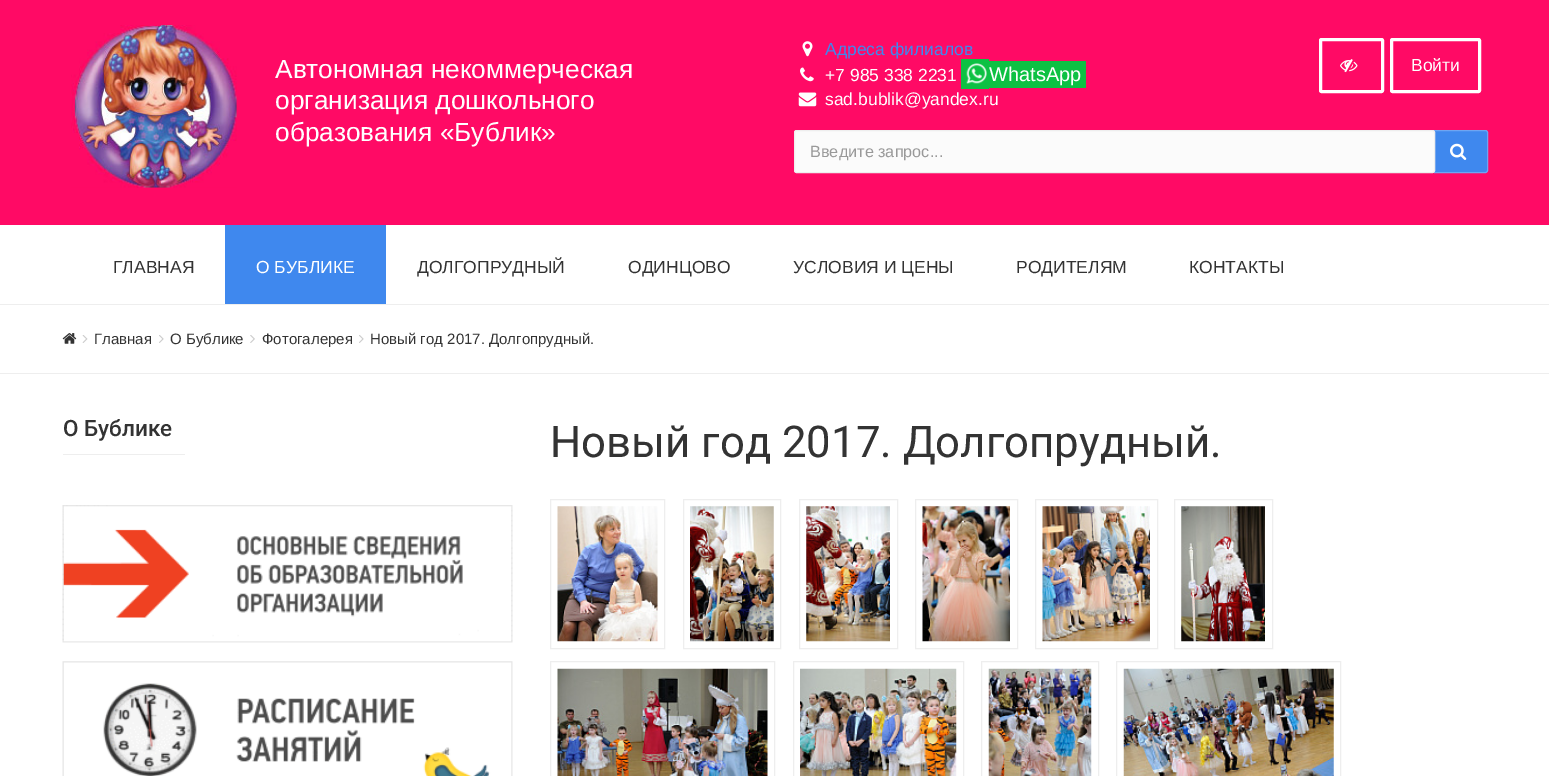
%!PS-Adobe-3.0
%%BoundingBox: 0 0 1549 776
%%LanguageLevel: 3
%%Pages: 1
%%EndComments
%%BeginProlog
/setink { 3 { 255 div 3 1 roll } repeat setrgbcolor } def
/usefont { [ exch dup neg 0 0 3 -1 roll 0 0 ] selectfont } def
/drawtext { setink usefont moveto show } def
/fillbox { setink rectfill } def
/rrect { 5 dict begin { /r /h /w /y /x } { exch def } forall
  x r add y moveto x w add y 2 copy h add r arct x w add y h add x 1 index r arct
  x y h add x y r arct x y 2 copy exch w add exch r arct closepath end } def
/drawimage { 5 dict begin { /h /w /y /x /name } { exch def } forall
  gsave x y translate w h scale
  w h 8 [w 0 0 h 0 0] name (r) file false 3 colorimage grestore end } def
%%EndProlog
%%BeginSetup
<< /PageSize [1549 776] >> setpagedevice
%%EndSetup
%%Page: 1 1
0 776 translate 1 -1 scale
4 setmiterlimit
0 0 1549 776 255 255 255 fillbox
0 0 1549 225 255 10 101 fillbox
(assets/img1.rgb) 71 25 166 163 drawimage
(Автономная некоммерческая) 275 78 /LiberationSans-Regular 26.25 255 255 255 drawtext
(организация дошкольного) 275 109 /LiberationSans-Regular 26.25 255 255 255 drawtext
(образования «Бублик») 275 141 /LiberationSans-Regular 26.25 255 255 255 drawtext
(assets/img2.rgb) 802 41 11 16 drawimage
(Адреса филиалов) 825 55 /LiberationSans-Regular 17.5 63 136 238 drawtext
(assets/img3.rgb) 800 67 14 15 drawimage
(+7 985 338 2231) 825 81 /LiberationSans-Regular 17.5 255 255 255 drawtext
961 59 28 30 13 193 67 fillbox
(assets/img4.rgb) 966 63 21 21 drawimage
989 61 97 27 13 193 67 fillbox
(WhatsApp) 989 81 /LiberationSans-Regular 20 255 255 255 drawtext
(assets/img5.rgb) 798 92 19 15 drawimage
(sad.bublik@yandex.ru) 825 105 /LiberationSans-Regular 17.5 255 255 255 drawtext
3 setlinewidth
1320.5 39.5 62 52 1 rrect stroke
(assets/img6.rgb) 1340 59 18 14 drawimage
1391.5 39.5 88 52 1 rrect stroke
(Войти) 1411 71 /LiberationSans-Regular 17.5 255 255 255 drawtext
63 136 238 setink
1434.5 130.5 moveto 1485.5 130.5 lineto 1486.5 130.5 1487.5 131.5 1487.5 132.5 curveto 1487.5 170.5 lineto 1487.5 171.5 1486.5 172.5 1485.5 172.5 curveto 1434.5 172.5 lineto closepath gsave fill grestore
110 165 242 setink
1 setlinewidth
stroke
251 251 251 setink
794.5 130.5 640 42 2 rrect gsave fill grestore
238 238 238 setink
stroke
(Введите запрос...) 810 157 /LiberationSans-Regular 16.25 153 153 153 drawtext
(assets/img7.rgb) 1450 143 17 17 drawimage
0 304 1549 1 238 238 238 fillbox
(ГЛАВНАЯ) 113 273 /LiberationSans-Regular 17.5 51 51 51 drawtext
225 225 161 79 63 136 238 fillbox
(О БУБЛИКЕ) 256 273 /LiberationSans-Regular 17.5 255 255 255 drawtext
(ДОЛГОПРУДНЫЙ) 417 273 /LiberationSans-Regular 17.5 51 51 51 drawtext
(ОДИНЦОВО) 628 273 /LiberationSans-Regular 17.5 51 51 51 drawtext
(УСЛОВИЯ И ЦЕНЫ) 793 273 /LiberationSans-Regular 17.5 51 51 51 drawtext
(РОДИТЕЛЯМ) 1016 273 /LiberationSans-Regular 17.5 51 51 51 drawtext
(КОНТАКТЫ) 1189 273 /LiberationSans-Regular 17.5 51 51 51 drawtext
0 373 1549 1 238 238 238 fillbox
(assets/img8.rgb) 62 333 15 11 drawimage
(assets/img9.rgb) 82 335 6 8 drawimage
(Главная) 94 344 /LiberationSans-Regular 15 51 51 51 drawtext
(assets/img10.rgb) 159 335 5 8 drawimage
(О Бублике) 170 344 /LiberationSans-Regular 15 51 51 51 drawtext
(assets/img11.rgb) 250 335 5 8 drawimage
(Фотогалерея) 262 344 /LiberationSans-Regular 15 51 51 51 drawtext
(assets/img10.rgb) 359 335 5 8 drawimage
(Новый год 2017. Долгопрудный.) 370 344 /LiberationSans-Regular 15 51 51 51 drawtext
63 454 122 1 238 238 238 fillbox
(О Бублике) 63 436 /Roboto-Medium 22.5 51 51 51 drawtext
(assets/img12.rgb) 62 505 451 138 drawimage
(assets/img13.rgb) 62 661 451 115 drawimage
(Новый год 2017. Долгопрудный.) 550 457 /Roboto-Regular 43.75 51 51 51 drawtext
238 238 238 setink
550.5 499.5 114 149 rectstroke
683.5 499.5 97 149 rectstroke
799.5 499.5 98 149 rectstroke
915.5 499.5 102 149 rectstroke
1035.5 499.5 122 149 rectstroke
1174.5 499.5 98 149 rectstroke
(assets/img14.rgb) 557 506 101 136 drawimage
(assets/img15.rgb) 690 506 84 136 drawimage
(assets/img16.rgb) 806 506 84 136 drawimage
(assets/img17.rgb) 922 506 88 136 drawimage
(assets/img18.rgb) 1042 506 108 136 drawimage
(assets/img19.rgb) 1181 506 84 136 drawimage
550.5 661.5 224 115 rectstroke
793.5 661.5 170 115 rectstroke
981.5 661.5 117 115 rectstroke
1116.5 661.5 224 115 rectstroke
(assets/img20.rgb) 557 668 211 108 drawimage
(assets/img21.rgb) 800 668 157 108 drawimage
(assets/img22.rgb) 988 668 104 108 drawimage
(assets/img23.rgb) 1123 668 211 108 drawimage
showpage
%%EOF
